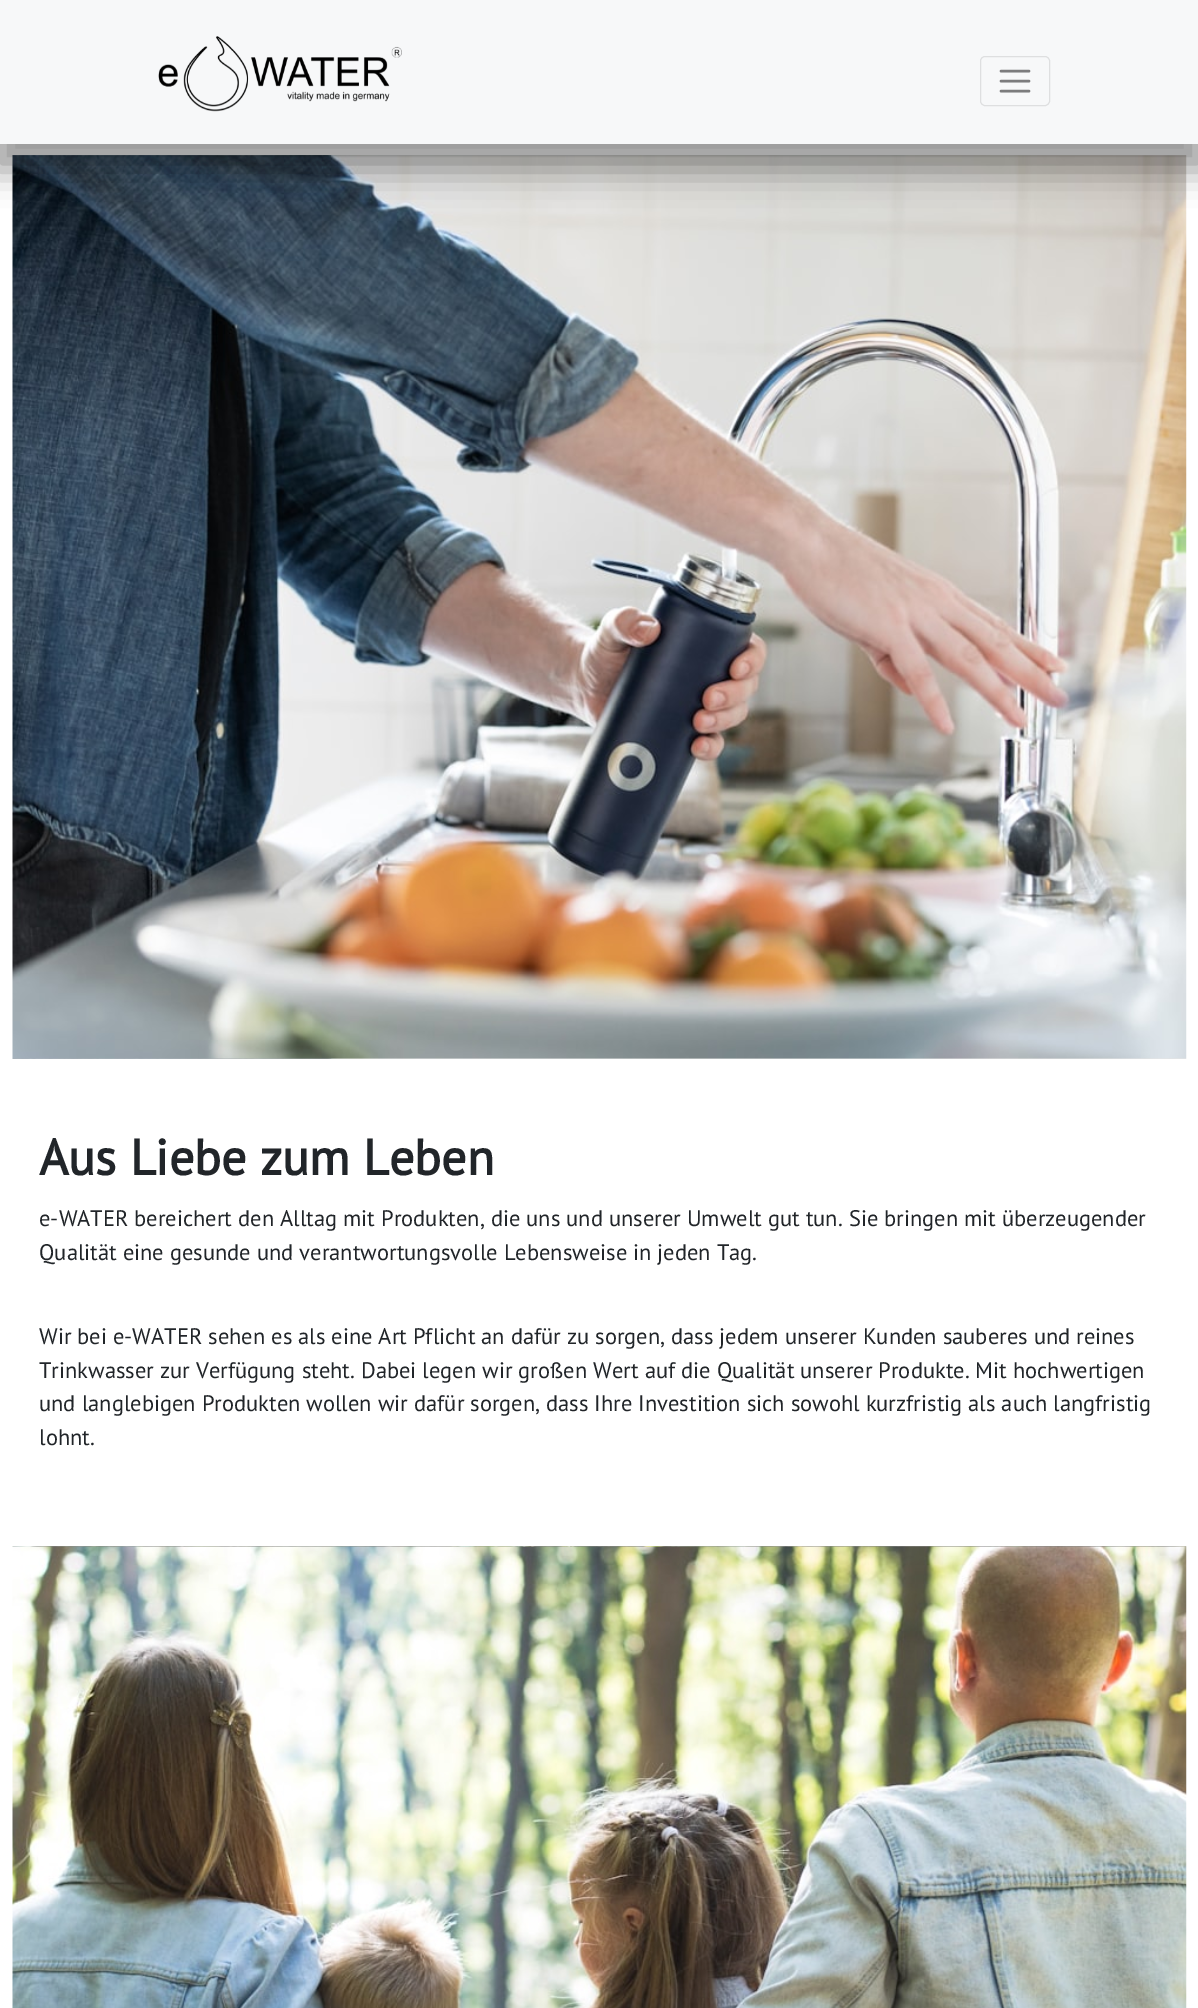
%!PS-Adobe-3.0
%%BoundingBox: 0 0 1198 2008
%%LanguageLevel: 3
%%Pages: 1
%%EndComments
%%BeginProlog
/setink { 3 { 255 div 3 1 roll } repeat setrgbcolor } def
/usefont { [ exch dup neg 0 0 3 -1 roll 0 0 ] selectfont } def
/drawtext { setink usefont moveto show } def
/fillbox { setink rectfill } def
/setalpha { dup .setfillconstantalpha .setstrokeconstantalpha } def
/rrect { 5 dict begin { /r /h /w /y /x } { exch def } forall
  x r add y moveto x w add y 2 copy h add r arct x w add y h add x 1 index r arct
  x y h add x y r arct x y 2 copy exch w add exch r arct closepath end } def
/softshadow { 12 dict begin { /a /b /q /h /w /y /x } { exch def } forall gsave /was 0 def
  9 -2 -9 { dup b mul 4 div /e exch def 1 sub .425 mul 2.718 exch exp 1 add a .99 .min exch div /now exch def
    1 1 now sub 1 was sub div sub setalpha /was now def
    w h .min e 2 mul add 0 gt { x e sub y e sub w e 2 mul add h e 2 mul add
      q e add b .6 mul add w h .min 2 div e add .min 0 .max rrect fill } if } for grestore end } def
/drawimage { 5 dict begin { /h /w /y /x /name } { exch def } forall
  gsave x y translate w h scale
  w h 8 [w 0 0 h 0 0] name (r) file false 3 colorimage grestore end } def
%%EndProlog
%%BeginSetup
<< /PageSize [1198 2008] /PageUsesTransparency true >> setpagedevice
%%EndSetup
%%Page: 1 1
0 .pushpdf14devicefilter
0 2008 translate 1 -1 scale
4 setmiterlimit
0 0 1198 2008 255 255 255 fillbox
(assets/img2.rgb) 12 155 1175 904 drawimage
0 0 0 setink
-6 14 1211 156 0 17 0.4 softshadow
0 0 1198 144 247 248 249 fillbox
(assets/img1.rgb) 158 36 244 76 drawimage
222 223 224 setink
980.5 56.5 69 49 4.5 rrect stroke
124 124 125 setink
2.5 setlinewidth
1 setlinecap
1001 71 moveto 1029 71 lineto 1001 81 moveto 1029 81 lineto 1001 91 moveto 1029 91 lineto stroke
(Aus Liebe zum Leben) 39 1175 /PTSans-Bold 50 33 37 41 drawtext
(e-WATER bereichert den Alltag mit Produkten, die uns und unserer Umwelt gut tun. Sie bringen mit überzeugender) 39 1226 /PTSans-Regular 22.5 33 37 41 drawtext
(Qualität eine gesunde und verantwortungsvolle Lebensweise in jeden Tag.) 39 1260 /PTSans-Regular 22.5 33 37 41 drawtext
(Wir bei e-WATER sehen es als eine Art Pflicht an dafür zu sorgen, dass jedem unserer Kunden sauberes und reines) 39 1344 /PTSans-Regular 22.5 33 37 41 drawtext
(Trinkwasser zur Verfügung steht. Dabei legen wir großen Wert auf die Qualität unserer Produkte. Mit hochwertigen) 39 1378 /PTSans-Regular 22.5 33 37 41 drawtext
(und langlebigen Produkten wollen wir dafür sorgen, dass Ihre Investition sich sowohl kurzfristig als auch langfristig) 39 1411 /PTSans-Regular 22.5 33 37 41 drawtext
(lohnt.) 39 1445 /PTSans-Regular 22.5 33 37 41 drawtext
(assets/img3.rgb) 12 1546 1175 462 drawimage
.poppdf14devicefilter showpage
%%EOF
